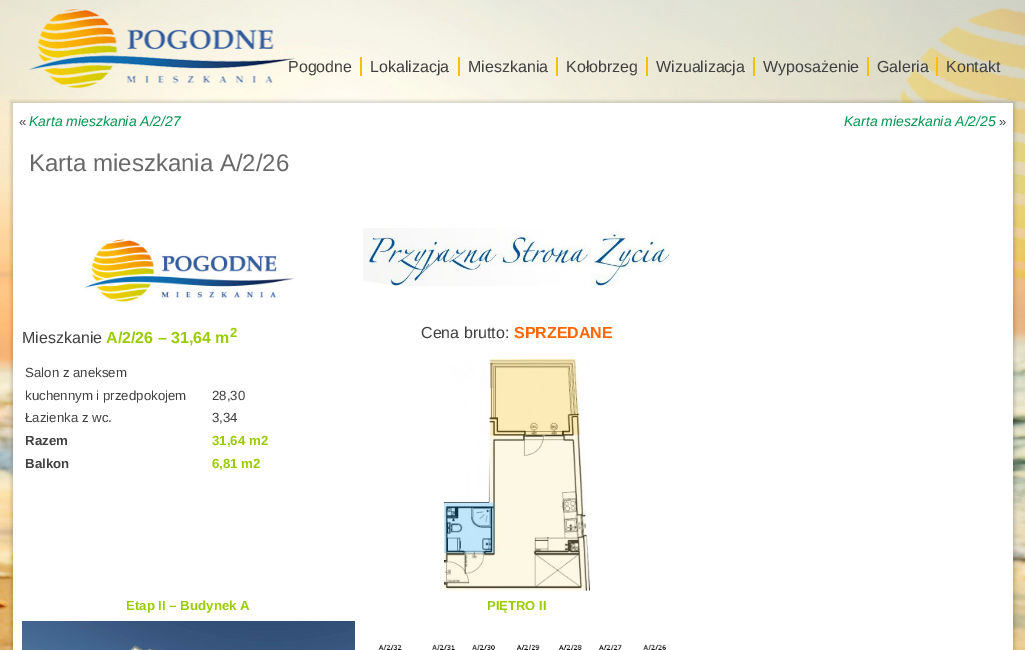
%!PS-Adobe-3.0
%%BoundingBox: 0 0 1025 650
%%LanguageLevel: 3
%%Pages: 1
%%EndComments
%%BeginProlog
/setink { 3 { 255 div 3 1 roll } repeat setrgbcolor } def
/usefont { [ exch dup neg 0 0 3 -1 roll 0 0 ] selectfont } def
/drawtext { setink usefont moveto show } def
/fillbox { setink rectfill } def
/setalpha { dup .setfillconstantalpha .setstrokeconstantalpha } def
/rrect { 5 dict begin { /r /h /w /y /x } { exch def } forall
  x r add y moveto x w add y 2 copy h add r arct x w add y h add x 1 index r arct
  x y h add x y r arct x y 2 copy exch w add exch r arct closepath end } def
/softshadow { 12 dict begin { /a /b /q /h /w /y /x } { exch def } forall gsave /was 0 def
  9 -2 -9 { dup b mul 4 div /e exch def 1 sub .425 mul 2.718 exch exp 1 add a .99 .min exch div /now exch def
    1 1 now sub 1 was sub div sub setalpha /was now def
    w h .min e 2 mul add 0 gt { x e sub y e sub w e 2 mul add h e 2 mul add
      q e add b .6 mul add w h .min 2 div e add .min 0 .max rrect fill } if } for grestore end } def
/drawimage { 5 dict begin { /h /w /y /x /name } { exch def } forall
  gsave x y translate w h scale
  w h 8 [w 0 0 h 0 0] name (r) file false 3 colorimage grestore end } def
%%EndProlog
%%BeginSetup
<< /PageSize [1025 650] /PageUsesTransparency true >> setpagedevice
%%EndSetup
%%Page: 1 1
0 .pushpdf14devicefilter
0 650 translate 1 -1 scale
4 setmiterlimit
0 0 1025 650 255 255 255 fillbox
(assets/img1.rgb) 0 0 1025 650 drawimage
(Pogodne) 288 72 /LiberationSans-Regular 16 64 64 64 drawtext
360 57 2 19 245 192 0 fillbox
(Lokalizacja) 370 72 /LiberationSans-Regular 16 64 64 64 drawtext
458 57 2 19 245 192 0 fillbox
(Mieszkania) 468 72 /LiberationSans-Regular 16 64 64 64 drawtext
556 57 2 19 245 192 0 fillbox
(Kołobrzeg) 566 72 /LiberationSans-Regular 16 64 64 64 drawtext
646 57 2 19 245 192 0 fillbox
(Wizualizacja) 656 72 /LiberationSans-Regular 16 64 64 64 drawtext
753 57 2 19 245 192 0 fillbox
(Wyposażenie) 763 72 /LiberationSans-Regular 16 64 64 64 drawtext
867 57 2 19 245 192 0 fillbox
(Galeria) 877 72 /LiberationSans-Regular 16 64 64 64 drawtext
936 57 2 19 245 192 0 fillbox
(Kontakt) 946 72 /LiberationSans-Regular 16 64 64 64 drawtext
0 0 0 setink
11 101 1004 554 0 1.5 0.15 softshadow
13 103 1000 547 255 255 255 fillbox
(«) 19 126 /LiberationSans-Regular 13 64 64 64 drawtext
(Karta mieszkania A/2/27) 29 126 /LiberationSans-Italic 14 0 148 79 drawtext
(Karta mieszkania A/2/25) 844 126 /LiberationSans-Italic 14 0 148 79 drawtext
(») 999 126 /LiberationSans-Regular 13 64 64 64 drawtext
(Karta mieszkania A/2/26) 29 171 /LiberationSans-Regular 24 105 105 105 drawtext
(assets/img2.rgb) 83 235 212 70 drawimage
(assets/img3.rgb) 363 228 308 58 drawimage
(Mieszkanie) 22 343 /LiberationSans-Regular 16 64 64 64 drawtext
(A/2/26 – 31,64 m) 106 343 /LiberationSans-Bold 16 153 204 0 drawtext
(2) 230 337 /LiberationSans-Bold 13.25 153 204 0 drawtext
(Cena brutto:) 421 338 /LiberationSans-Regular 16 64 64 64 drawtext
(SPRZEDANE) 514 338 /LiberationSans-Bold 16 255 102 0 drawtext
(Salon z aneksem) 25 377 /LiberationSans-Regular 13.25 64 64 64 drawtext
(kuchennym i przedpokojem) 25 400 /LiberationSans-Regular 13.25 64 64 64 drawtext
(Łazienka z wc.) 25 422 /LiberationSans-Regular 13.25 64 64 64 drawtext
(Razem) 25 445 /LiberationSans-Bold 13.25 64 64 64 drawtext
(Balkon) 25 468 /LiberationSans-Bold 13.25 64 64 64 drawtext
(28,30) 212 400 /LiberationSans-Regular 13.25 64 64 64 drawtext
(3,34) 212 422 /LiberationSans-Regular 13.25 64 64 64 drawtext
(31,64 m2) 212 445 /LiberationSans-Bold 13.25 153 204 0 drawtext
(6,81 m2) 212 468 /LiberationSans-Bold 13.25 153 204 0 drawtext
(assets/img4.rgb) 444 359 146 232 drawimage
(Etap II – Budynek A) 126 610 /LiberationSans-Bold 13.25 153 204 0 drawtext
(PIĘTRO II) 487 610 /LiberationSans-Bold 13 153 204 0 drawtext
(assets/img5.rgb) 22 621 333 29 drawimage
(assets/img6.rgb) 378 644 288 6 drawimage
.poppdf14devicefilter showpage
%%EOF
